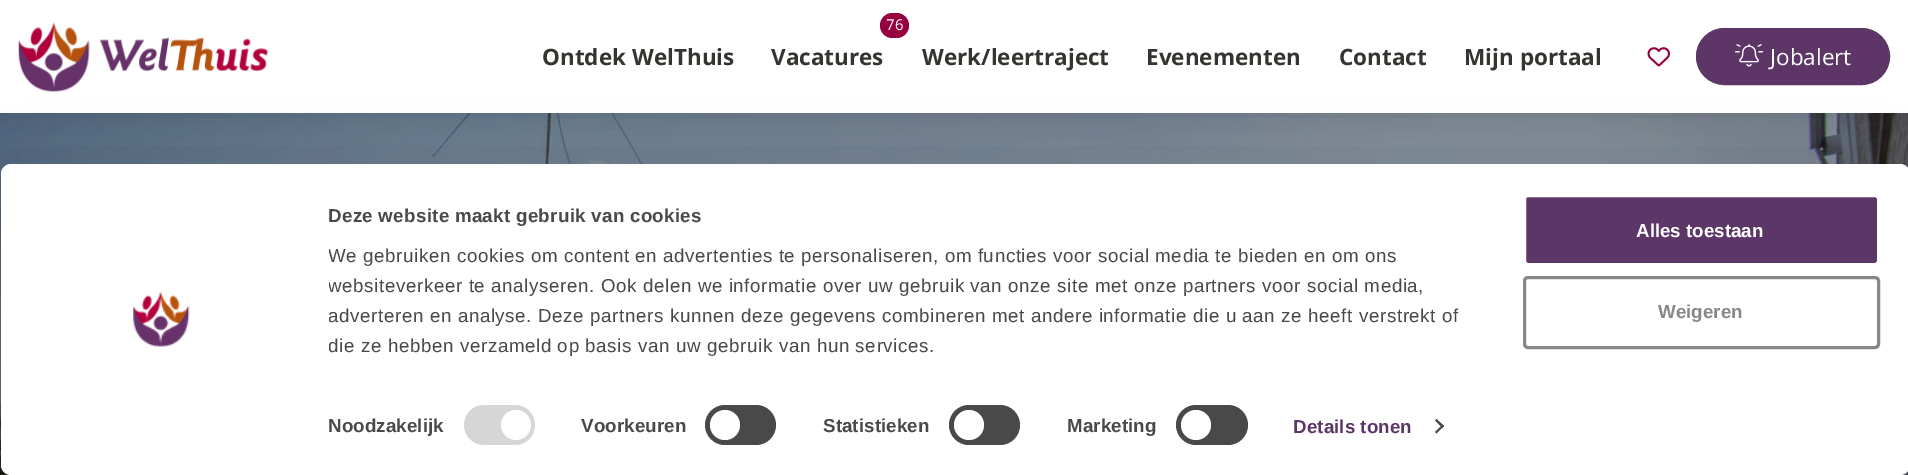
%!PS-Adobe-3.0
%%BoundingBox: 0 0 1908 475
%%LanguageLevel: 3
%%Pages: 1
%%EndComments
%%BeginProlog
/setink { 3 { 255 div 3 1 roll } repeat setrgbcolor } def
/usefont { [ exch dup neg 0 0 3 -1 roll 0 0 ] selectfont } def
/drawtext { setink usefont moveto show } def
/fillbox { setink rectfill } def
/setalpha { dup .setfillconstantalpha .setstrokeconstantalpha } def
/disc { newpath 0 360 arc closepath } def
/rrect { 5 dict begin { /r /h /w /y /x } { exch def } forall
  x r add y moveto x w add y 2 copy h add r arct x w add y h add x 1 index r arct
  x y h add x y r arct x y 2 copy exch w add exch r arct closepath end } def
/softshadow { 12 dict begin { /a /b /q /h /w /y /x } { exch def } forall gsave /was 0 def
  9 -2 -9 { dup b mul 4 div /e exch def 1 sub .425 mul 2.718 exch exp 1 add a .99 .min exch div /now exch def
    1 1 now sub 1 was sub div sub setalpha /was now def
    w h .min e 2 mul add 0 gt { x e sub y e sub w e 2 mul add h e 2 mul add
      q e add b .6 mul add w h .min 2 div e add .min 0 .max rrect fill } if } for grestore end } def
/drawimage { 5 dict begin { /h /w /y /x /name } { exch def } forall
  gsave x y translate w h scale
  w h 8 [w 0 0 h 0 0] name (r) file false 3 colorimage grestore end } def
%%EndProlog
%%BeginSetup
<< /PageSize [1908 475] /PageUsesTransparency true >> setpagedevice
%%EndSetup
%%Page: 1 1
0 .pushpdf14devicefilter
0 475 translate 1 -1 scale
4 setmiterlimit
0 0 1908 475 255 255 255 fillbox
(assets/img4.rgb) 0 113 1908 362 drawimage
0 0 0 setink
0 3 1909 112 0 12.5 0.15 softshadow
0 0 1908 113 255 255 255 fillbox
(assets/img1.rgb) 18 22 250 70 drawimage
(Ontdek WelThuis) 542 65 /OpenSans-Bold 22.5 53 52 48 drawtext
150 0 63 setink
880 13 29 25 12.5 rrect fill
(76) 886 30 /OpenSans-Regular 15 255 255 255 drawtext
(Vacatures) 771 65 /OpenSans-Bold 22.5 53 52 48 drawtext
(Werk/leertraject) 922 65 /OpenSans-Bold 22.5 53 52 48 drawtext
(Evenementen) 1146 65 /OpenSans-Bold 22.5 53 52 48 drawtext
(Contact) 1339 65 /OpenSans-Bold 22.5 53 52 48 drawtext
(Mijn portaal) 1464 65 /OpenSans-Bold 22.5 53 52 48 drawtext
(assets/img2.rgb) 1647 47 23 20 drawimage
93 54 103 setink
1696.5 28.5 193 56 28 rrect gsave fill grestore
stroke
(assets/img3.rgb) 1735 44 29 23 drawimage
(Jobalert) 1770 65 /OpenSans-Regular 22.5 255 255 255 drawtext
gsave
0 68 moveto 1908 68 lineto 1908 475 lineto 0 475 lineto closepath 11 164 moveto 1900 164 lineto 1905.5 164 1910 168.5 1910 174 curveto 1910 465 lineto 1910 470.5 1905.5 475 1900 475 curveto 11 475 lineto 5.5 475 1 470.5 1 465 curveto 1 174 lineto 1 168.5 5.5 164 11 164 curveto closepath eoclip newpath
0 0 0 setink
1 201 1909 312 10 44 0.3 softshadow
grestore
1 164 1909 311 10 rrect fill
(assets/img5.rgb) 133 291 57 56 drawimage
gsave
329 201 1157 159 rectclip
/LiberationSans-Bold 18.75 usefont
73 73 73 setink
328 222 moveto 0.3 0 (Deze website maakt gebruik van cookies) ashow
/LiberationSans-Regular 18.75 usefont
328 262 moveto 0.62 0 (We gebruiken cookies om content en advertenties te personaliseren, om functies voor social media te bieden en om ons) ashow
328 292 moveto 0.62 0 (websiteverkeer te analyseren. Ook delen we informatie over uw gebruik van onze site met onze partners voor social media,) ashow
328 322 moveto 0.62 0 (adverteren en analyse. Deze partners kunnen deze gegevens combineren met andere informatie die u aan ze heeft verstrekt of) ashow
328 352 moveto 0.62 0 (die ze hebben verzameld op basis van uw gebruik van hun services.) ashow
grestore
/LiberationSans-Bold 18.75 usefont
73 73 73 setink
328 432 moveto 0.1 0 (Noodzakelijk) ashow
214 214 214 setink
464 405 71 40 20 rrect fill
255 255 255 setink
516 425 15 disc fill
73 73 73 setink
581 432 moveto 0.1 0 (Voorkeuren) ashow
705 405 71 40 20 rrect fill
255 255 255 setink
725 425 15 disc fill
73 73 73 setink
823 432 moveto 0.1 0 (Statistieken) ashow
949 405 71 40 20 rrect fill
255 255 255 setink
969 425 15 disc fill
73 73 73 setink
1067 432 moveto 0.1 0 (Marketing) ashow
1176 405 72 40 20 rrect fill
255 255 255 setink
1196 425 15 disc fill
93 54 104 setink
1293 433 moveto 0.1 0 (Details tonen) ashow
73 73 73 setink
1436.5 419 moveto 1444 426 lineto 1442.5 428 lineto 1435 420.5 lineto closepath fill
1442.5 424.5 moveto 1444 426 lineto 1436.5 433.5 lineto 1435 432 lineto closepath fill
93 54 104 setink
1524.5 195.5 354 69 3.5 rrect gsave fill grestore
255 255 255 setink
3 setlinewidth
stroke
(Alles toestaan) 1636 237 /LiberationSans-Bold 18.75 255 255 255 drawtext
135 135 135 setink
1524.5 277.5 354 70 3.5 rrect stroke
(Weigeren) 1658 318 /LiberationSans-Bold 18.75 135 135 135 drawtext
.poppdf14devicefilter showpage
%%EOF
